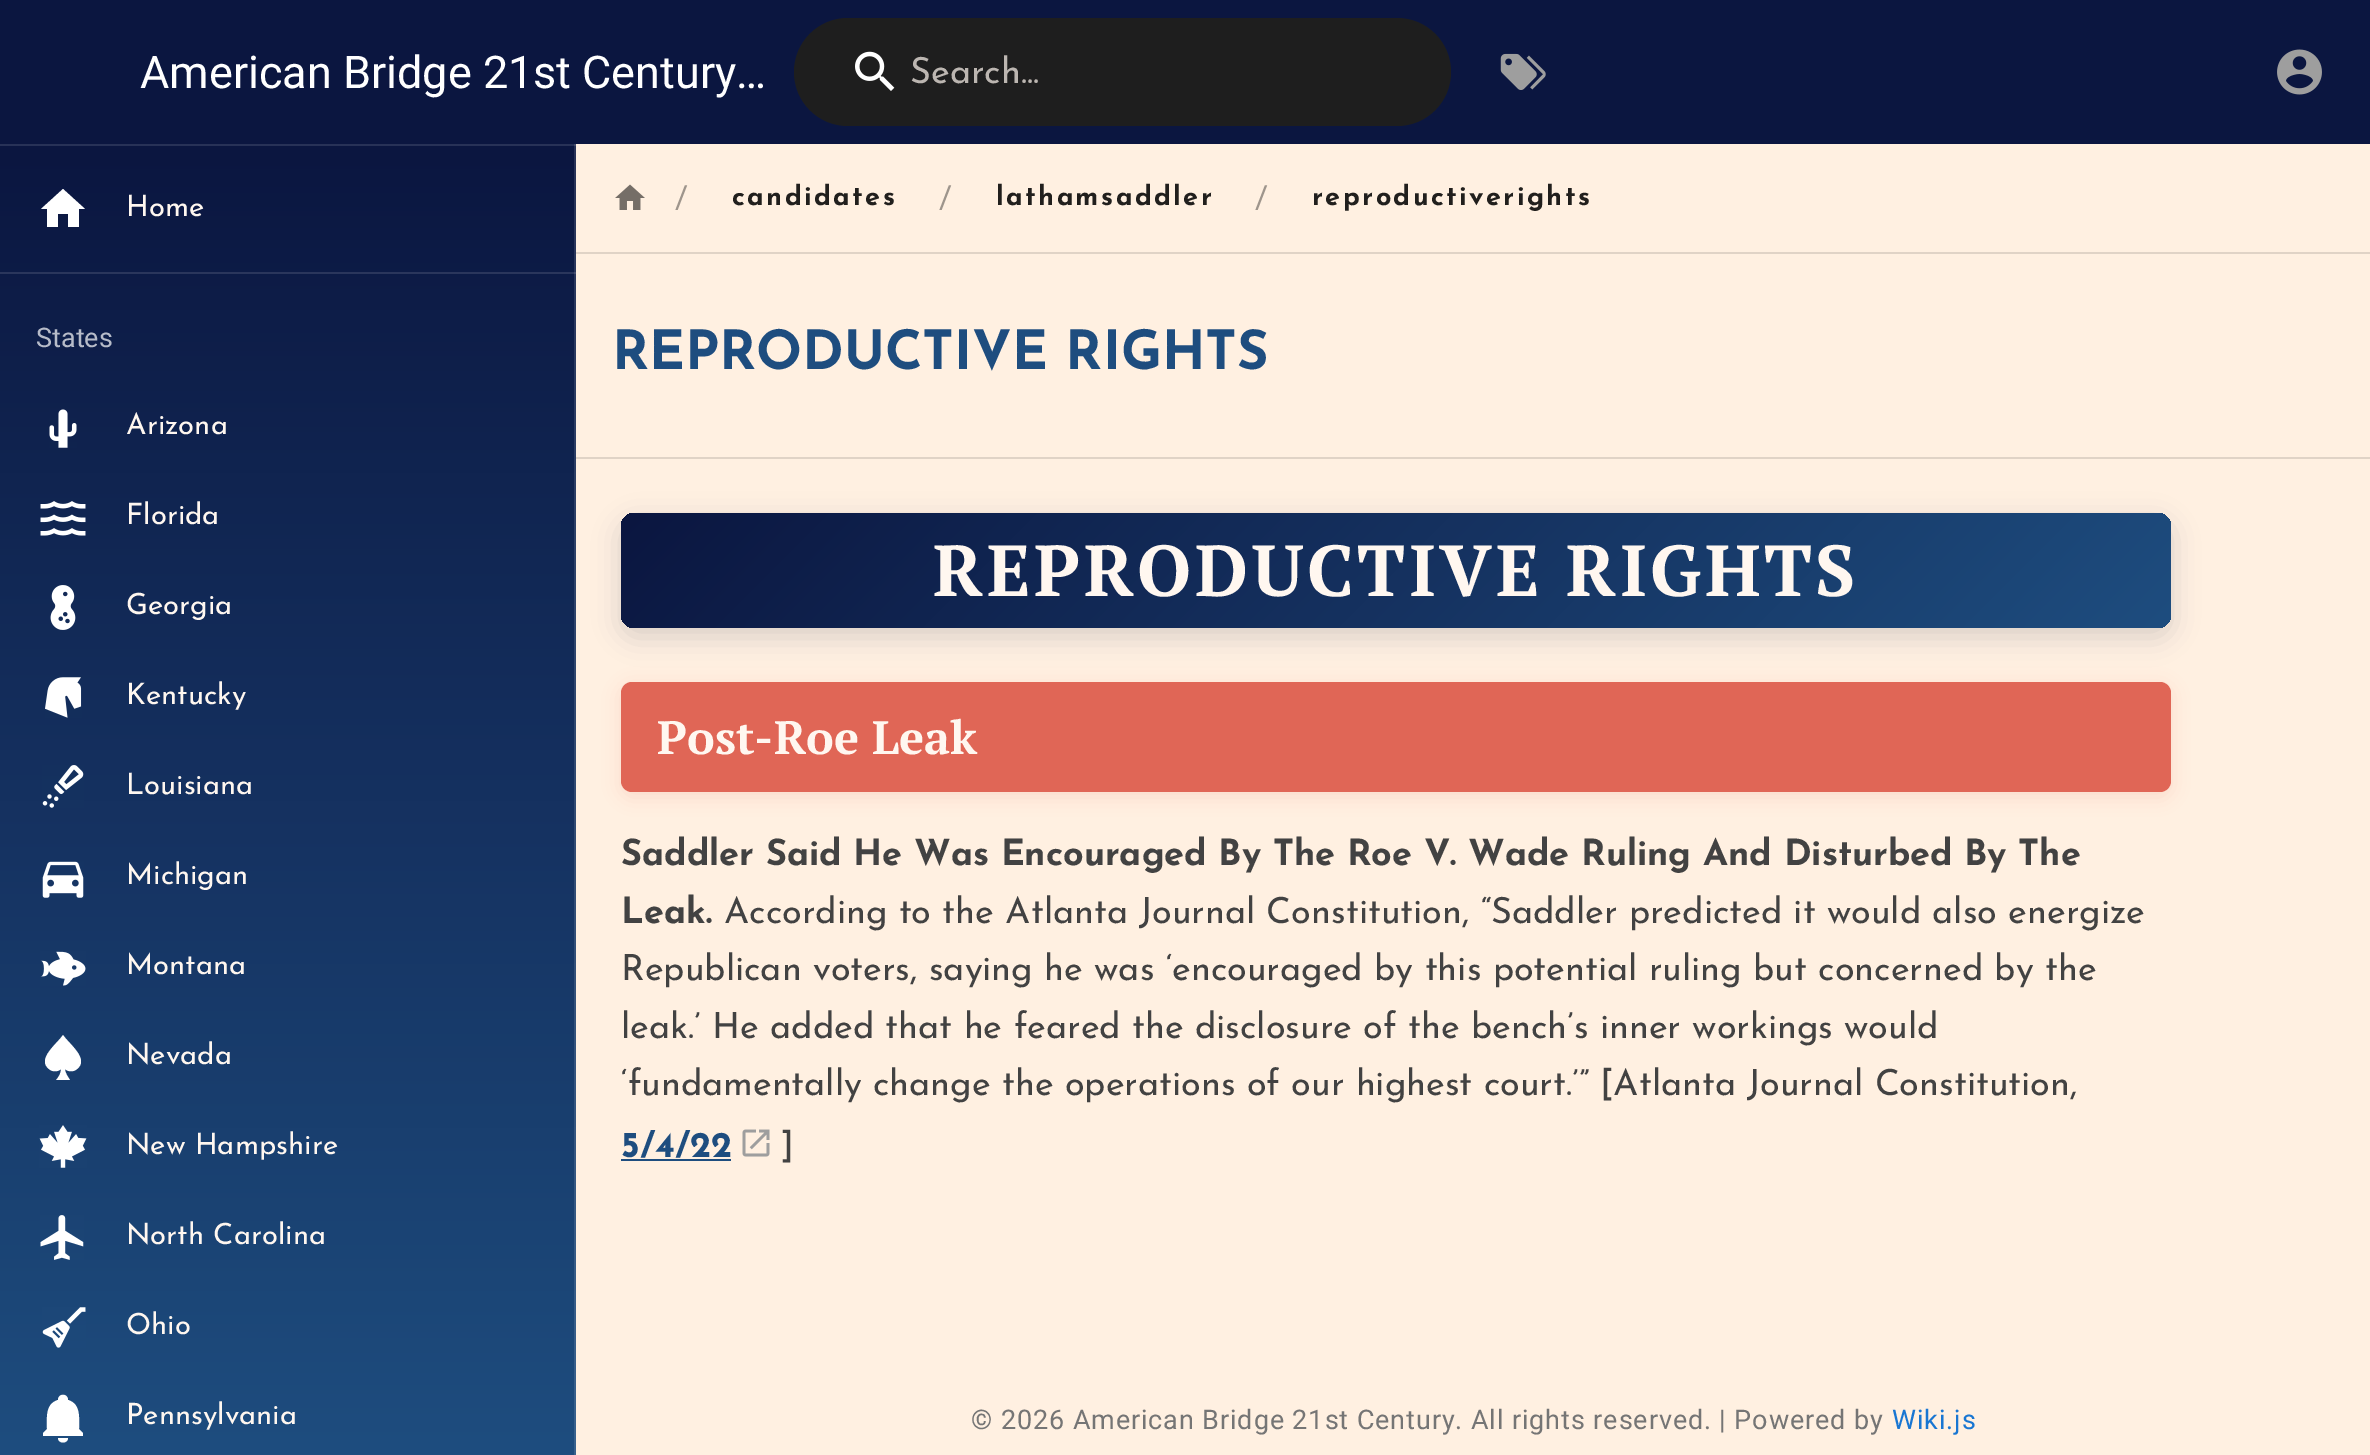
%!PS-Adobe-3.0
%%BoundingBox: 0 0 2370 1455
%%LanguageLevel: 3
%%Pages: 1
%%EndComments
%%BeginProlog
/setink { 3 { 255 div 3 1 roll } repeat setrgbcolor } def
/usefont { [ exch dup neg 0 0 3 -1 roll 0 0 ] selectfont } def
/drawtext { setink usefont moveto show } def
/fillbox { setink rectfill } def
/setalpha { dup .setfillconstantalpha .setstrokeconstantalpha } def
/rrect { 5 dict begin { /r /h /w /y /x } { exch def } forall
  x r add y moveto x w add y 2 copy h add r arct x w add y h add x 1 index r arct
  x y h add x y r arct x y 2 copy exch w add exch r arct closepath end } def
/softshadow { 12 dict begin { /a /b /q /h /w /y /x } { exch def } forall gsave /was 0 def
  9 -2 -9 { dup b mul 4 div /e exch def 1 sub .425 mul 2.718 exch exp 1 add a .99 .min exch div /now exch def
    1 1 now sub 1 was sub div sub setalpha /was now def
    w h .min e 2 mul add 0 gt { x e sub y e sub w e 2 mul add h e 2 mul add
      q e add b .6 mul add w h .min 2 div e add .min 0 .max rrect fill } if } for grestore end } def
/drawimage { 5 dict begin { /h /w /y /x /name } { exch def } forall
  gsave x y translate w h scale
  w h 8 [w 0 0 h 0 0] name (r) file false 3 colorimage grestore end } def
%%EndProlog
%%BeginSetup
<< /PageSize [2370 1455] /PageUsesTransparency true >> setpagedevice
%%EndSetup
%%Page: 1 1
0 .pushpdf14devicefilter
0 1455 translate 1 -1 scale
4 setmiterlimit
0 0 2370 1455 255 240 225 fillbox
0 0 2370 144 11 22 64 fillbox
(American Bridge 21st Century…) 140 88 /Roboto-Regular 45 255 255 255 drawtext
30 30 30 setink
794 18 657 108 54 rrect fill
(assets/img1.rgb) 855 51 40 40 drawimage
(Search...) 910 83 /JosefinSans-Regular 36 188 182 177 drawtext
(assets/img2.rgb) 1500 53 46 37 drawimage
(assets/img3.rgb) 2277 49 45 46 drawimage
gsave 0 146 moveto 574 146 lineto 574 1455 lineto 0 1455 lineto closepath clip newpath
<< /ShadingType 2 /ColorSpace /DeviceRGB /Coords [288 144 288 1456] /Extend [true true] /Function << /FunctionType 2 /Domain [0 1] /C0 [0.043 0.086 0.251] /C1 [0.118 0.302 0.498] /N 1 >> >> shfill grestore
gsave 574 144 moveto 576 144 lineto 576 1455 lineto 574 1455 lineto closepath clip newpath
<< /ShadingType 2 /ColorSpace /DeviceRGB /Coords [288 144 288 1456] /Extend [true true] /Function << /FunctionType 2 /Domain [0 1] /C0 [0.157 0.196 0.341] /C1 [0.224 0.384 0.557] /N 1 >> >> shfill grestore
0 144 576 2 40 50 87 fillbox
574 144 2 2 66 75 107 fillbox
255 255 255 setink
58 227 moveto 58 214 lineto 68 214 lineto 68 227 lineto 79 227 lineto 79 209 lineto 85 209 lineto 63 189 lineto 41 209 lineto 47 209 lineto 47 227 lineto closepath fill
(Home) 126 216 /JosefinSans-Regular 29.25 255 247 240 drawtext
0 272 576 2 42 54 92 fillbox
574 272 2 2 68 78 112 fillbox
(States) 36 347 /Roboto-Regular 27 183 188 201 drawtext
(assets/img4.rgb) 49 409 28 39 drawimage
(Arizona) 126 434 /JosefinSans-Regular 29.25 255 247 240 drawtext
(assets/img5.rgb) 40 501 46 35 drawimage
(Florida) 126 524 /JosefinSans-Regular 29.25 255 247 240 drawtext
(assets/img6.rgb) 50 585 26 45 drawimage
(Georgia) 126 614 /JosefinSans-Regular 29.25 255 247 240 drawtext
(assets/img7.rgb) 45 677 37 41 drawimage
(Kentucky) 126 704 /JosefinSans-Regular 29.25 255 247 240 drawtext
(assets/img8.rgb) 42 765 42 43 drawimage
(Louisiana) 126 794 /JosefinSans-Regular 29.25 255 247 240 drawtext
(assets/img9.rgb) 42 861 42 37 drawimage
(Michigan) 126 884 /JosefinSans-Regular 29.25 255 247 240 drawtext
(assets/img10.rgb) 40 951 46 35 drawimage
(Montana) 126 974 /JosefinSans-Regular 29.25 255 247 240 drawtext
255 255 255 setink
63 1035 moveto 58 1043 36 1059 49 1069 curveto 52 1072 58 1072 61 1069 curveto 61 1073 59 1077 56 1080 curveto 70 1080 lineto 68 1077 65 1073 65 1069 curveto 68 1072 74 1072 77 1069 curveto 90 1059 68 1043 63 1035 curveto closepath fill
(Nevada) 126 1064 /JosefinSans-Regular 29.25 255 247 240 drawtext
(assets/img11.rgb) 39 1125 48 43 drawimage
(New Hampshire) 126 1154 /JosefinSans-Regular 29.25 255 247 240 drawtext
(assets/img12.rgb) 40 1215 44 45 drawimage
(North Carolina) 126 1244 /JosefinSans-Regular 29.25 255 247 240 drawtext
(assets/img13.rgb) 42 1307 44 41 drawimage
(Ohio) 126 1334 /JosefinSans-Regular 29.25 255 247 240 drawtext
255 255 255 setink
83 1433 moveto 83 1436 lineto 43 1436 lineto 43 1433 lineto 47 1429 lineto 47 1418 45 1404 58 1400 curveto 58 1393 68 1393 68 1400 curveto 81 1404 79 1418 79 1429 curveto closepath 68 1438 moveto 68 1444 58 1444 58 1438 curveto closepath fill
(Pennsylvania) 126 1424 /JosefinSans-Regular 29.25 255 247 240 drawtext
(assets/img14.rgb) 615 184 30 26 drawimage
(/) 675 208 /Roboto-Regular 32 158 149 140 drawtext
/JosefinSans-Bold 27 usefont
33 31 29 setink
732 205 moveto 2.4 0 (candidates) ashow
(/) 939 208 /Roboto-Regular 32 158 149 140 drawtext
/JosefinSans-Bold 27 usefont
33 31 29 setink
996 205 moveto 2.4 0 (lathamsaddler) ashow
(/) 1255 208 /Roboto-Regular 32 158 149 140 drawtext
/JosefinSans-Bold 27 usefont
33 31 29 setink
1312 205 moveto 2.4 0 (reproductiverights) ashow
576 252 1794 2 224 211 198 fillbox
(REPRODUCTIVE RIGHTS) 612 369 /JosefinSans-Bold 54 30 77 127 drawtext
576 457 1794 2 224 211 198 fillbox
11 22 64 setink
621 522 1550 115 14 13.5 0.15 softshadow
gsave 621 513 1550 115 14 rrect clip newpath
<< /ShadingType 2 /ColorSpace /DeviceRGB /Coords [980 154 1812 987] /Extend [true true] /Function << /FunctionType 2 /Domain [0 1] /C0 [0.043 0.086 0.251] /C1 [0.118 0.302 0.498] /N 1 >> >> shfill grestore
/PTSerif-Bold 72 usefont
255 247 240 setink
933 596 moveto 3.6 0 (REPRODUCTIVE RIGHTS) ashow
224 102 86 setink
621 686 1550 111 11 9 0.15 softshadow
621 682 1550 110 11 rrect fill
(Post-Roe Leak) 657 754 /PTSerif-Bold 46.75 255 247 240 drawtext
(Saddler Said He Was Encouraged By The Roe V. Wade Ruling And Disturbed By The) 621 865 /JosefinSans-Bold 36 66 66 66 drawtext
(Leak.) 621 923 /JosefinSans-Bold 36 66 66 66 drawtext
(According to the Atlanta Journal Constitution, “Saddler predicted it would also energize) 724 923 /JosefinSans-Regular 36 66 66 66 drawtext
(Republican voters, saying he was ‘encouraged by this potential ruling but concerned by the) 621 980 /JosefinSans-Regular 36 66 66 66 drawtext
(leak.’ He added that he feared the disclosure of the bench’s inner workings would) 621 1038 /JosefinSans-Regular 36 66 66 66 drawtext
(‘fundamentally change the operations of our highest court.’” [Atlanta Journal Constitution,) 621 1095 /JosefinSans-Regular 36 66 66 66 drawtext
(5/4/22) 621 1157 /JosefinSans-Bold 36 30 77 127 drawtext
621 1159 110 2 30 77 127 fillbox
(assets/img15.rgb) 742 1129 28 28 drawimage
(]) 781 1157 /JosefinSans-Regular 36 66 66 66 drawtext
/Roboto-Regular 27 usefont
117 117 117 setink
971 1429 moveto 0.9 0 (© 2026 American Bridge 21st Century. All rights reserved. | Powered by) ashow
25 118 210 setink
1892 1429 moveto 0.9 0 (Wiki.js) ashow
.poppdf14devicefilter showpage
%%EOF
